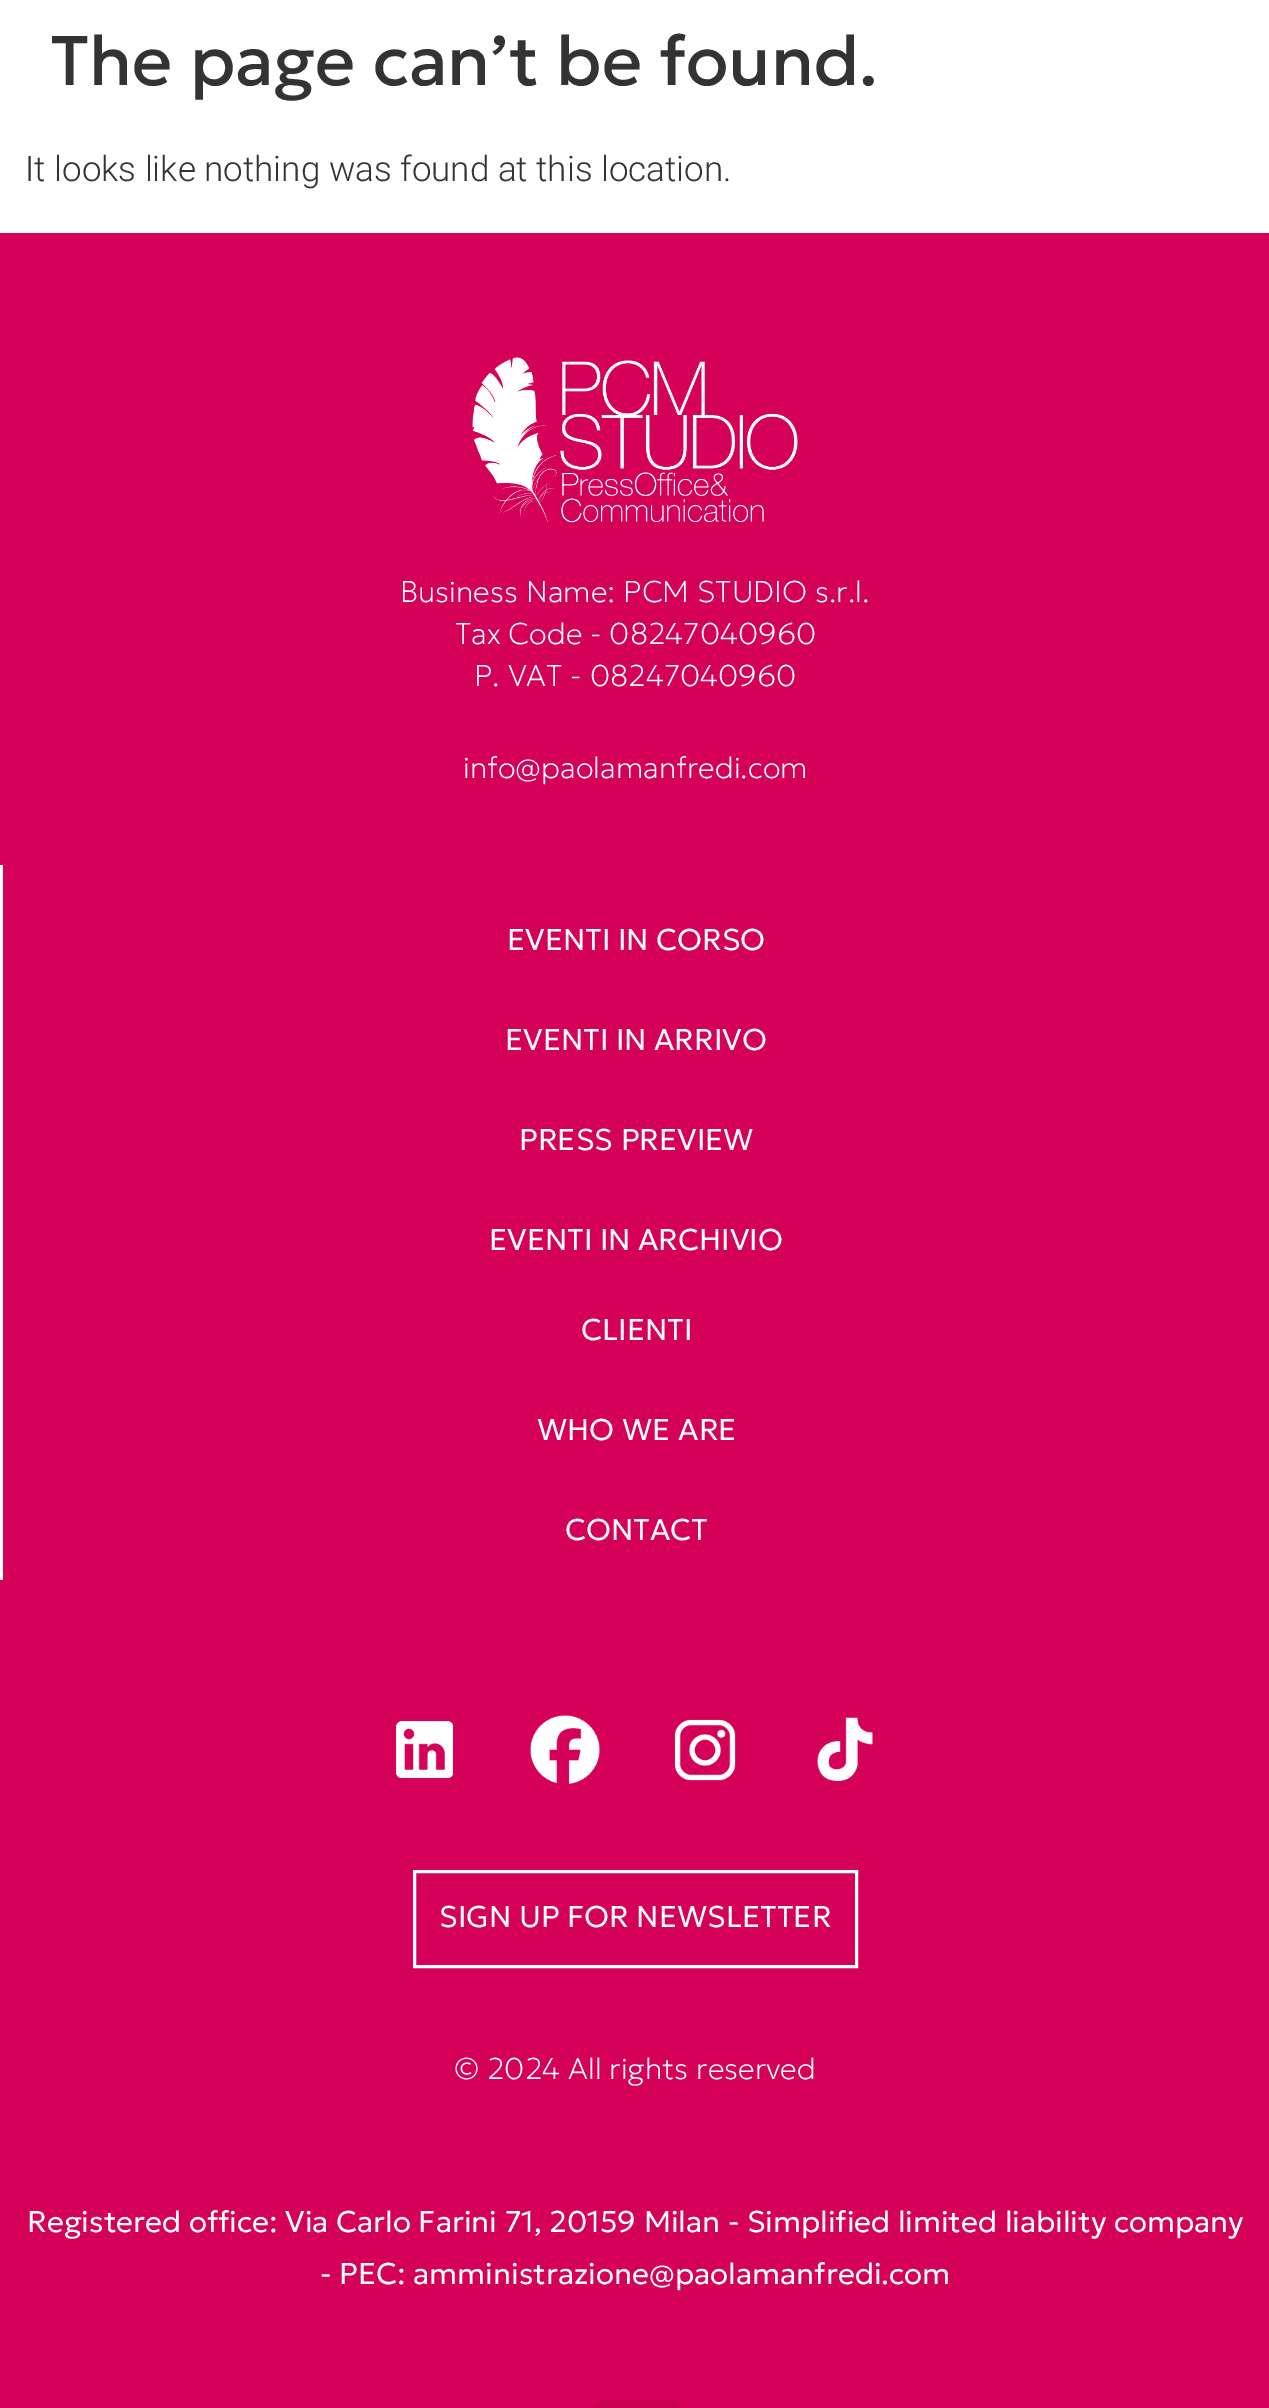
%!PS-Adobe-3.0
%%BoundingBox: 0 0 1269 2408
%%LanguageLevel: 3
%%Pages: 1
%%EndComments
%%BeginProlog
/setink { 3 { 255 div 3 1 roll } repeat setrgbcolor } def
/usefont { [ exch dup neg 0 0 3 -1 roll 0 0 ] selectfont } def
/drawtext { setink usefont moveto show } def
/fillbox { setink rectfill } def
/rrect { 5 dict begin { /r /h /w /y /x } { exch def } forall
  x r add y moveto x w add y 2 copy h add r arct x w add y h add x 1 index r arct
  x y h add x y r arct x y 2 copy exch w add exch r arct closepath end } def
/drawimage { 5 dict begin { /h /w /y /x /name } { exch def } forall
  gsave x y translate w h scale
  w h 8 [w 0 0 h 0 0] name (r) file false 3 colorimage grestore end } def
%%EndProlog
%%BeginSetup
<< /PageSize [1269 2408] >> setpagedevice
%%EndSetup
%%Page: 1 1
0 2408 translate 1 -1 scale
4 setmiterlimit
0 0 1269 2408 255 255 255 fillbox
(The page can’t be found.) 50 85 /Geologica-Regular 70 51 51 51 drawtext
(It looks like nothing was found at this location.) 25 181 /Roboto-Light 35 51 51 51 drawtext
0 233 1269 2175 213 0 87 fillbox
(assets/img1.rgb) 472 357 326 166 drawimage
(Business Name: PCM STUDIO s.r.l.) 400 602 /Geologica-Thin 30 255 255 255 drawtext
(Tax Code - 08247040960) 455 644 /Geologica-Thin 30 255 255 255 drawtext
(P. VAT - 08247040960) 474 686 /Geologica-Thin 30 255 255 255 drawtext
(info@paolamanfredi.com) 463 778 /Geologica-Thin 30 255 255 255 drawtext
0 865 3 715 255 255 255 fillbox
(EVENTI IN CORSO) 507 950 /Geologica-Light 30 255 255 255 drawtext
(EVENTI IN ARRIVO) 505 1050 /Geologica-Light 30 255 255 255 drawtext
(PRESS PREVIEW) 519 1150 /Geologica-Light 30 255 255 255 drawtext
(EVENTI IN ARCHIVIO) 489 1250 /Geologica-Light 30 255 255 255 drawtext
(CLIENTI) 581 1340 /Geologica-Light 30 255 255 255 drawtext
(WHO WE ARE) 537 1440 /Geologica-Light 30 255 255 255 drawtext
(CONTACT) 565 1540 /Geologica-Light 30 255 255 255 drawtext
(assets/img2.rgb) 396 1721 57 57 drawimage
(assets/img3.rgb) 530 1715 70 69 drawimage
(assets/img4.rgb) 674 1719 62 62 drawimage
(assets/img5.rgb) 817 1717 56 64 drawimage
3 setlinewidth
414.5 1871.5 442 95 rectstroke
(SIGN UP FOR NEWSLETTER) 439 1927 /Geologica-Light 30 255 255 255 drawtext
(© 2024 All rights reserved) 454 2079 /Geologica-Thin 30 255 255 255 drawtext
(Registered office: Via Carlo Farini 71, 20159 Milan - Simplified limited liability company) 27 2232 /Geologica-Light 30 255 255 255 drawtext
(- PEC: amministrazione@paolamanfredi.com) 320 2284 /Geologica-Light 30 255 255 255 drawtext
202 0 83 setink
595 2400 83 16 8 rrect fill
showpage
%%EOF
